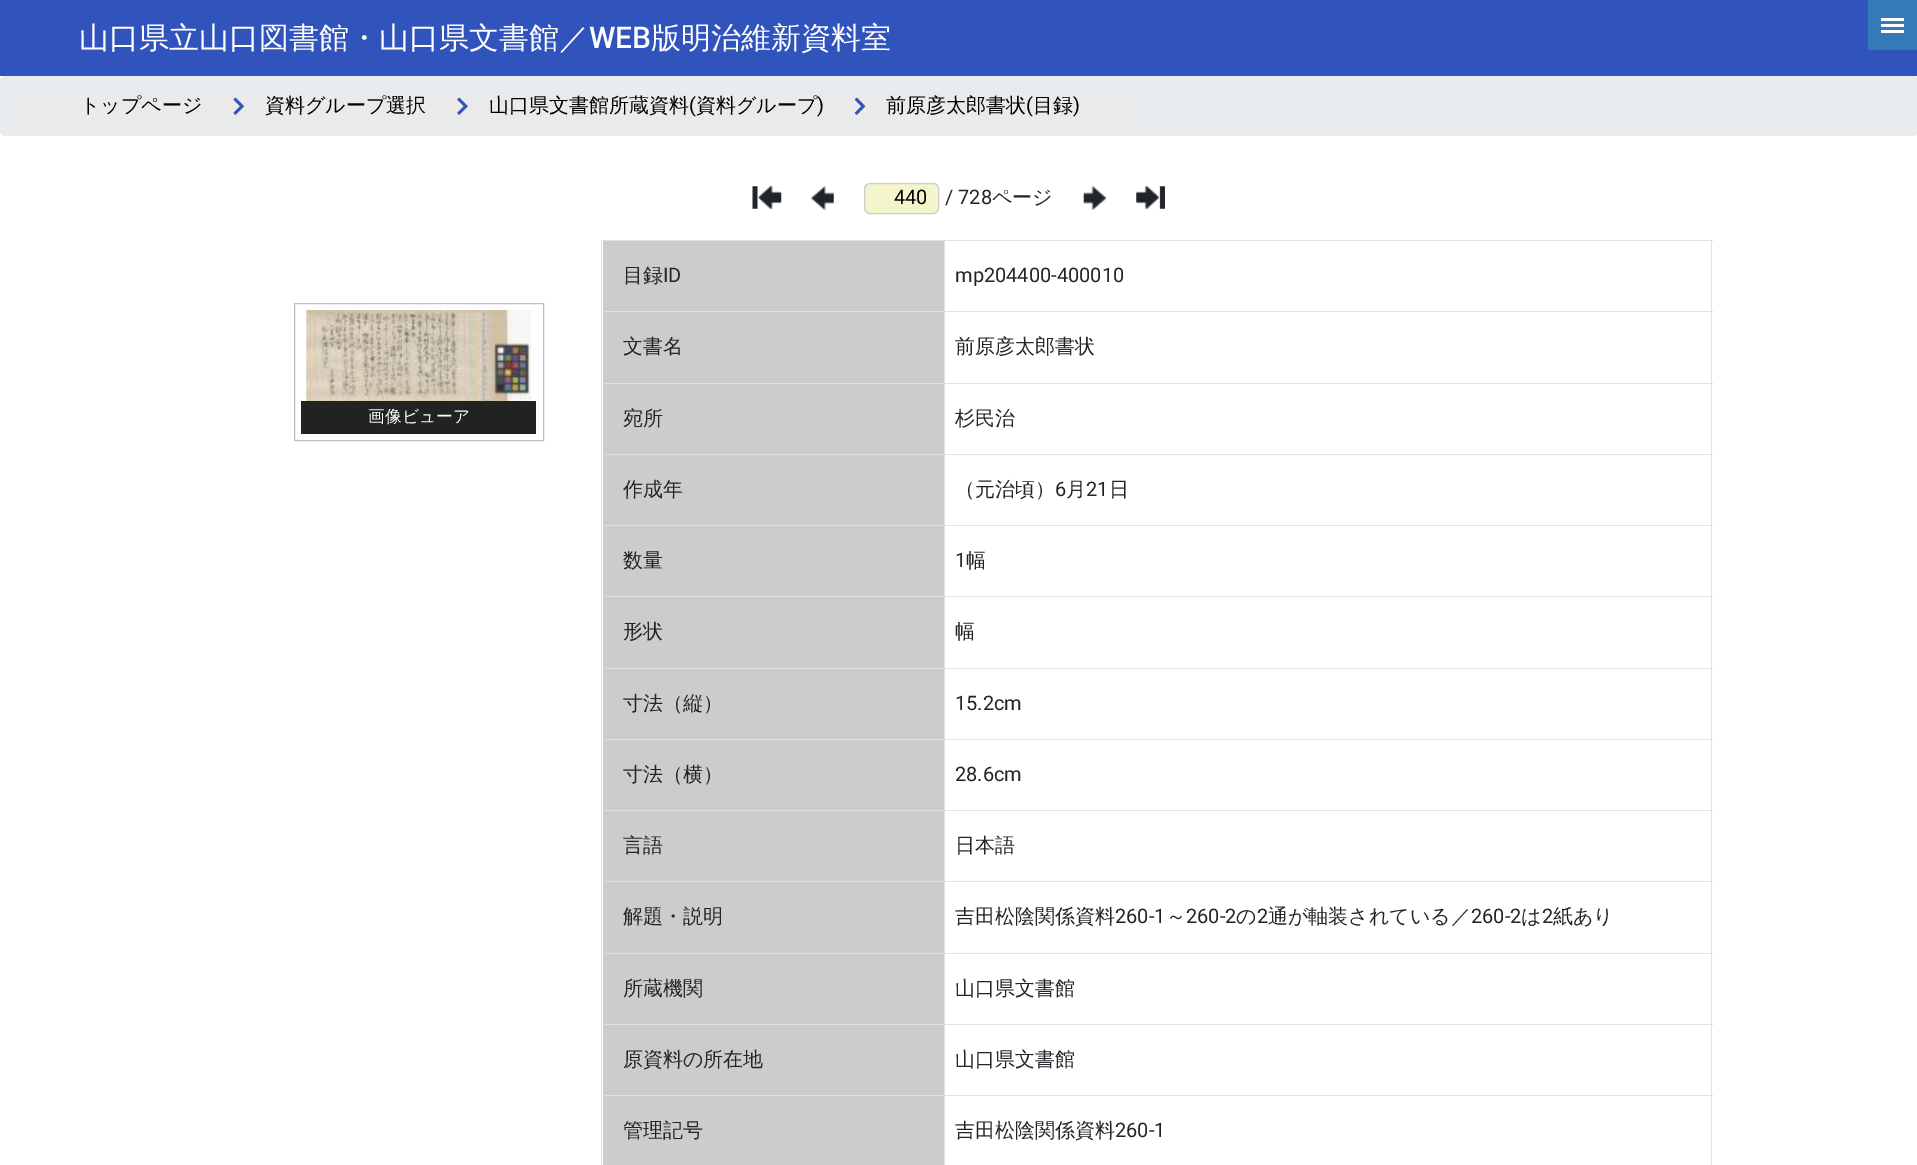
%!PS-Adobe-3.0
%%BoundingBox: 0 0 1917 1165
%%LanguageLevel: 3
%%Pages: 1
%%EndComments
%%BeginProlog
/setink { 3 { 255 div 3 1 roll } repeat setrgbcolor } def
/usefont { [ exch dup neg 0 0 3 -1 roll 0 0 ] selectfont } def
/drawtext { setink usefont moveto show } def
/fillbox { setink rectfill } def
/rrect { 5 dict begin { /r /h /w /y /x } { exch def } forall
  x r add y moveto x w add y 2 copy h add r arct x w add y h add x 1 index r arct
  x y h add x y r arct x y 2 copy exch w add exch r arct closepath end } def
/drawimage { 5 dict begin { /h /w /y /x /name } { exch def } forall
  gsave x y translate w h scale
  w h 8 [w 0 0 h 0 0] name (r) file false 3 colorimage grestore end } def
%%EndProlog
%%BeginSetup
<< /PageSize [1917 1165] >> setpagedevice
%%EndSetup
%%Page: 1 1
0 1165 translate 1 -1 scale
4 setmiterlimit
0 0 1917 1165 255 255 255 fillbox
0 0 1917 76 49 83 188 fillbox
(山口県立山口図書館・山口県文書館／) 79 48 /WenQuanYiZenHei-Medium 30 255 255 255 drawtext
(WEB) 589 48 /Roboto-Medium 30 255 255 255 drawtext
(版明治維新資料室) 651 48 /WenQuanYiZenHei-Medium 30 255 255 255 drawtext
1868 0 49 50 51 122 183 fillbox
1881 24 23 3 255 255 255 fillbox
1881 18 23 3 255 255 255 fillbox
1881 30 23 3 255 255 255 fillbox
233 236 239 setink
0 76 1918 60 5 rrect fill
234 234 234 setink
20 91 1120 30 5 rrect fill
(トップページ) 80 112 /WenQuanYiZenHei-Medium 20 0 0 0 drawtext
(assets/img1.rgb) 233 97 11 18 drawimage
(資料グループ選択) 265 112 /WenQuanYiZenHei-Medium 20 0 0 0 drawtext
(assets/img2.rgb) 457 97 11 18 drawimage
(山口県文書館所蔵資料) 489 112 /WenQuanYiZenHei-Medium 20 0 0 0 drawtext
(\() 689 112 /Roboto-Regular 20 0 0 0 drawtext
(資料グループ) 696 112 /WenQuanYiZenHei-Medium 20 0 0 0 drawtext
(\)) 817 112 /Roboto-Regular 20 0 0 0 drawtext
(assets/img3.rgb) 854 97 12 18 drawimage
(前原彦太郎書状) 886 112 /WenQuanYiZenHei-Medium 20 0 0 0 drawtext
(\() 1026 112 /Roboto-Regular 20 0 0 0 drawtext
(目録) 1033 112 /WenQuanYiZenHei-Medium 20 0 0 0 drawtext
(\)) 1073 112 /Roboto-Regular 20 0 0 0 drawtext
(assets/img4.rgb) 752 186 30 23 drawimage
(assets/img5.rgb) 811 186 23 24 drawimage
245 245 204 setink
864.5 183.5 74 30 5.5 rrect gsave fill grestore
204 204 204 setink
stroke
(440) 894 204 /Roboto-Regular 20 0 0 0 drawtext
(/ 728) 945 204 /Roboto-Regular 20 33 37 41 drawtext
(ページ) 992 204 /WenQuanYiZenHei-Medium 20 33 37 41 drawtext
(assets/img6.rgb) 1083 186 24 24 drawimage
(assets/img7.rgb) 1136 186 29 23 drawimage
192 192 192 setink
294.5 303.5 249 137 rectstroke
(assets/img8.rgb) 306 310 226 91 drawimage
301 401 235 33 34 34 34 fillbox
(画像ビューア) 368 422 /WenQuanYiZenHei-Medium 16.75 255 255 255 drawtext
601 240 1112 1 222 226 230 fillbox
1711 240 1 925 222 226 230 fillbox
601 240 1 925 222 226 230 fillbox
603 241 341 70 204 204 204 fillbox
(目録) 623 282 /WenQuanYiZenHei-Medium 20 33 37 41 drawtext
(ID) 663 282 /Roboto-Regular 20 33 37 41 drawtext
944 311 769 1 222 226 230 fillbox
944 383 769 1 222 226 230 fillbox
944 454 769 1 222 226 230 fillbox
944 525 769 1 222 226 230 fillbox
944 596 769 1 222 226 230 fillbox
944 668 769 1 222 226 230 fillbox
944 739 769 1 222 226 230 fillbox
944 810 769 1 222 226 230 fillbox
944 881 769 1 222 226 230 fillbox
944 953 769 1 222 226 230 fillbox
944 1024 769 1 222 226 230 fillbox
944 1095 769 1 222 226 230 fillbox
944 1095 1 70 222 226 230 fillbox
601 1095 344 1 222 226 230 fillbox
944 1024 1 72 222 226 230 fillbox
601 1024 344 1 222 226 230 fillbox
944 953 1 72 222 226 230 fillbox
601 953 344 1 222 226 230 fillbox
944 881 1 73 222 226 230 fillbox
601 881 344 1 222 226 230 fillbox
944 810 1 73 222 226 230 fillbox
601 810 344 1 222 226 230 fillbox
944 739 1 72 222 226 230 fillbox
601 739 344 1 222 226 230 fillbox
944 668 1 72 222 226 230 fillbox
601 668 344 1 222 226 230 fillbox
944 596 1 73 222 226 230 fillbox
601 596 344 1 222 226 230 fillbox
944 525 1 73 222 226 230 fillbox
601 525 344 1 222 226 230 fillbox
944 454 1 72 222 226 230 fillbox
601 454 344 1 222 226 230 fillbox
944 383 1 72 222 226 230 fillbox
601 383 344 1 222 226 230 fillbox
944 311 1 73 222 226 230 fillbox
601 311 344 1 222 226 230 fillbox
944 240 1 73 222 226 230 fillbox
(mp204400-400010) 955 282 /Roboto-Regular 20 33 37 41 drawtext
603 312 341 71 204 204 204 fillbox
(文書名) 623 353 /WenQuanYiZenHei-Medium 20 33 37 41 drawtext
(前原彦太郎書状) 955 353 /WenQuanYiZenHei-Medium 20 33 37 41 drawtext
603 384 341 70 204 204 204 fillbox
(宛所) 623 425 /WenQuanYiZenHei-Medium 20 33 37 41 drawtext
(杉民治) 955 425 /WenQuanYiZenHei-Medium 20 33 37 41 drawtext
603 455 341 70 204 204 204 fillbox
(作成年) 623 496 /WenQuanYiZenHei-Medium 20 33 37 41 drawtext
(（元治頃）) 955 496 /WenQuanYiZenHei-Medium 20 33 37 41 drawtext
(6) 1055 496 /Roboto-Regular 20 33 37 41 drawtext
(月) 1066 496 /WenQuanYiZenHei-Medium 20 33 37 41 drawtext
(21) 1086 496 /Roboto-Regular 20 33 37 41 drawtext
(日) 1109 496 /WenQuanYiZenHei-Medium 20 33 37 41 drawtext
603 526 341 70 204 204 204 fillbox
(数量) 623 567 /WenQuanYiZenHei-Medium 20 33 37 41 drawtext
(1) 955 567 /Roboto-Regular 20 33 37 41 drawtext
(幅) 966 567 /WenQuanYiZenHei-Medium 20 33 37 41 drawtext
603 597 341 71 204 204 204 fillbox
(形状) 623 638 /WenQuanYiZenHei-Medium 20 33 37 41 drawtext
(幅) 955 638 /WenQuanYiZenHei-Medium 20 33 37 41 drawtext
603 669 341 70 204 204 204 fillbox
(寸法（縦）) 623 710 /WenQuanYiZenHei-Medium 20 33 37 41 drawtext
(15.2cm) 955 710 /Roboto-Regular 20 33 37 41 drawtext
603 740 341 70 204 204 204 fillbox
(寸法（横）) 623 781 /WenQuanYiZenHei-Medium 20 33 37 41 drawtext
(28.6cm) 955 781 /Roboto-Regular 20 33 37 41 drawtext
603 811 341 70 204 204 204 fillbox
(言語) 623 852 /WenQuanYiZenHei-Medium 20 33 37 41 drawtext
(日本語) 955 852 /WenQuanYiZenHei-Medium 20 33 37 41 drawtext
603 882 341 71 204 204 204 fillbox
(解題・説明) 623 923 /WenQuanYiZenHei-Medium 20 33 37 41 drawtext
(吉田松陰関係資料) 955 923 /WenQuanYiZenHei-Medium 20 33 37 41 drawtext
(260-1) 1115 923 /Roboto-Regular 20 33 37 41 drawtext
(～) 1166 923 /WenQuanYiZenHei-Medium 20 33 37 41 drawtext
(260-2) 1186 923 /Roboto-Regular 20 33 37 41 drawtext
(の) 1236 923 /WenQuanYiZenHei-Medium 20 33 37 41 drawtext
(2) 1257 923 /Roboto-Regular 20 33 37 41 drawtext
(通が軸装されている／) 1268 923 /WenQuanYiZenHei-Medium 20 33 37 41 drawtext
(260-2) 1471 923 /Roboto-Regular 20 33 37 41 drawtext
(は) 1521 923 /WenQuanYiZenHei-Medium 20 33 37 41 drawtext
(2) 1542 923 /Roboto-Regular 20 33 37 41 drawtext
(紙あり) 1553 923 /WenQuanYiZenHei-Medium 20 33 37 41 drawtext
603 954 341 70 204 204 204 fillbox
(所蔵機関) 623 995 /WenQuanYiZenHei-Medium 20 33 37 41 drawtext
(山口県文書館) 955 995 /WenQuanYiZenHei-Medium 20 33 37 41 drawtext
603 1025 341 70 204 204 204 fillbox
(原資料の所在地) 623 1066 /WenQuanYiZenHei-Medium 20 33 37 41 drawtext
(山口県文書館) 955 1066 /WenQuanYiZenHei-Medium 20 33 37 41 drawtext
603 1096 341 69 204 204 204 fillbox
(管理記号) 623 1137 /WenQuanYiZenHei-Medium 20 33 37 41 drawtext
(吉田松陰関係資料) 955 1137 /WenQuanYiZenHei-Medium 20 33 37 41 drawtext
(260-1) 1115 1137 /Roboto-Regular 20 33 37 41 drawtext
showpage
%%EOF
